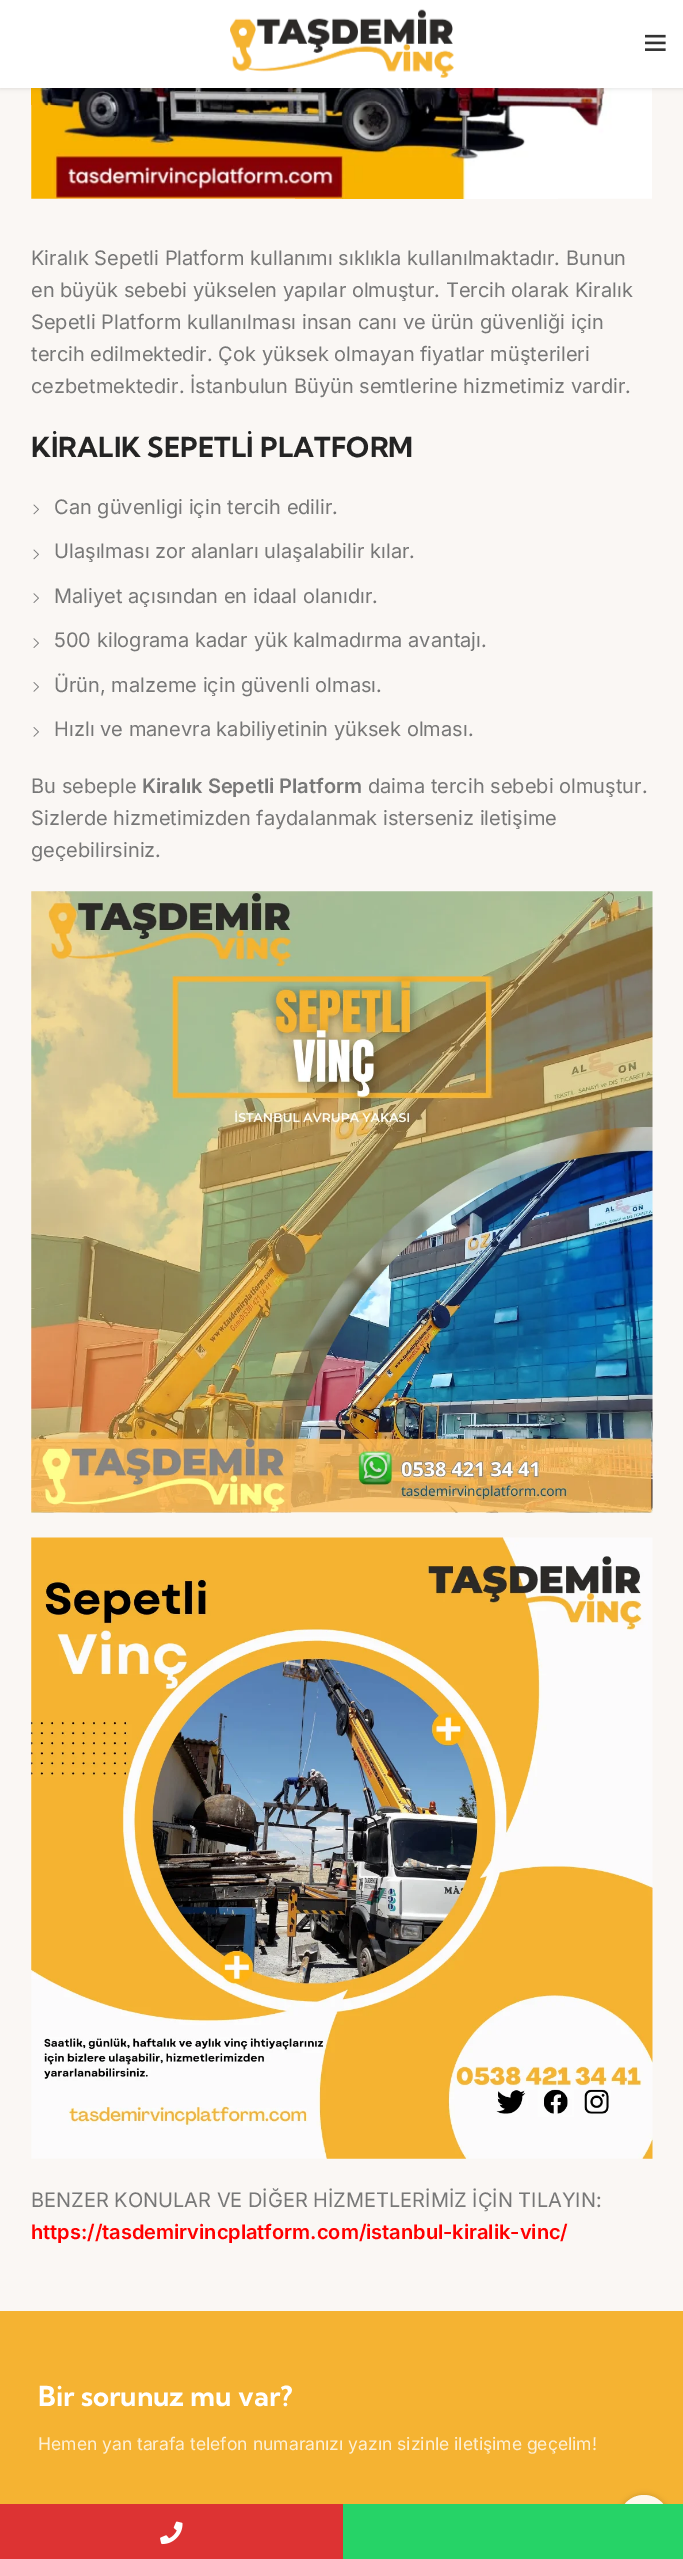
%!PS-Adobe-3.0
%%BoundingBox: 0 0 683 2559
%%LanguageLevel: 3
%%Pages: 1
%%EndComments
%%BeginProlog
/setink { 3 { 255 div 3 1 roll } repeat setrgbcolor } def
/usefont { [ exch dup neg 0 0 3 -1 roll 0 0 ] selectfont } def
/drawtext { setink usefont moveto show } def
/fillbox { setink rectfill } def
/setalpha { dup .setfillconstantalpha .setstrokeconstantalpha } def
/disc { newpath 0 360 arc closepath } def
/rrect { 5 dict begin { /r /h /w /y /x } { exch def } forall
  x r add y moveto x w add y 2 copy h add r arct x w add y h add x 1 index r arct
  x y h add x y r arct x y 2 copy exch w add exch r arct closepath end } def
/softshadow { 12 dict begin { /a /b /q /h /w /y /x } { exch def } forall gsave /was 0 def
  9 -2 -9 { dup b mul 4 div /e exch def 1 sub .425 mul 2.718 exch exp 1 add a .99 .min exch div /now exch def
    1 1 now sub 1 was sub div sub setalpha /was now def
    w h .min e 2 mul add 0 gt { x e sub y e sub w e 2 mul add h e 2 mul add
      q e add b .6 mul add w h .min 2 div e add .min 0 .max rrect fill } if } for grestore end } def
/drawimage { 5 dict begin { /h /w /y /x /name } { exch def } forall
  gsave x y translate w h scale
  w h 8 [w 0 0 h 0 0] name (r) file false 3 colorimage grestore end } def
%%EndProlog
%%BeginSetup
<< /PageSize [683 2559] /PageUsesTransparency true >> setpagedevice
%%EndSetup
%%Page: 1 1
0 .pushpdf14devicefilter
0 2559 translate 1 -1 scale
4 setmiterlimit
0 0 683 2559 250 247 244 fillbox
(assets/img3.rgb) 31 88 621 111 drawimage
0 0 0 setink
0 1 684 88 0 2 0.1 softshadow
0 0 683 88 255 255 255 fillbox
(assets/img1.rgb) 230 9 224 69 drawimage
(assets/img2.rgb) 645 34 21 17 drawimage
(Kiralık Sepetli Platform kullanımı sıklıkla kullanılmaktadır. Bunun) 31 265 /Inter-Regular 20 119 119 119 drawtext
(en büyük sebebi yükselen yapılar olmuştur. Tercih olarak Kiralık) 31 297 /Inter-Regular 20 119 119 119 drawtext
(Sepetli Platform kullanılması insan canı ve ürün güvenliği için) 31 329 /Inter-Regular 20 119 119 119 drawtext
(tercih edilmektedir. Çok yüksek olmayan fiyatlar müşterileri) 31 361 /Inter-Regular 20 119 119 119 drawtext
(cezbetmektedir. İstanbulun Büyün semtlerine hizmetimiz vardir.) 31 393 /Inter-Regular 20 119 119 119 drawtext
(KİRALIK SEPETLİ PLATFORM) 31 457 /KumbhSans-Bold 27.5 36 36 36 drawtext
(assets/img4.rgb) 33 504 6 11 drawimage
(Can güvenligi için tercih edilir.) 54 514 /Inter-Regular 20 119 119 119 drawtext
(assets/img4.rgb) 33 549 6 11 drawimage
(Ulaşılması zor alanları ulaşalabilir kılar.) 54 558 /Inter-Regular 20 119 119 119 drawtext
(assets/img5.rgb) 33 593 6 10 drawimage
(Maliyet açısından en idaal olanıdır.) 54 603 /Inter-Regular 20 119 119 119 drawtext
(assets/img5.rgb) 33 638 6 10 drawimage
(500 kilograma kadar yük kalmadırma avantajı.) 54 647 /Inter-Regular 20 119 119 119 drawtext
(assets/img6.rgb) 33 682 6 10 drawimage
(Ürün, malzeme için güvenli olması.) 54 692 /Inter-Regular 20 119 119 119 drawtext
(assets/img6.rgb) 33 727 6 10 drawimage
(Hızlı ve manevra kabiliyetinin yüksek olması.) 54 736 /Inter-Regular 20 119 119 119 drawtext
(Bu sebeple) 31 793 /Inter-Regular 20 119 119 119 drawtext
(Kiralık Sepetli Platform) 142 793 /Inter-SemiBold 20 119 119 119 drawtext
(daima tercih sebebi olmuştur.) 368 793 /Inter-Regular 20 119 119 119 drawtext
(Sizlerde hizmetimizden faydalanmak isterseniz iletişime) 31 825 /Inter-Regular 20 119 119 119 drawtext
(geçebilirsiniz.) 31 857 /Inter-Regular 20 119 119 119 drawtext
(assets/img7.rgb) 31 891 622 622 drawimage
(assets/img8.rgb) 31 1537 622 622 drawimage
(BENZER KONULAR VE DİĞER HİZMETLERİMİZ İÇİN TILAYIN:) 31 2207 /Inter-Regular 20 119 119 119 drawtext
(https://tasdemirvincplatform.com/istanbul-kiralik-vinc/) 31 2239 /Inter-SemiBold 20 255 0 0 drawtext
0 2311 683 193 245 179 50 fillbox
(Bir sorunuz mu var?) 38 2406 /KumbhSans-Bold 27.5 255 255 255 drawtext
(Hemen yan tarafa telefon numaranızı yazın sizinle iletişime geçelim!) 38 2450 /Inter-Regular 17.5 253 240 214 drawtext
gsave
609 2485 moveto 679 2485 lineto 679 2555 lineto 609 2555 lineto closepath 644 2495 moveto 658 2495 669 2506 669 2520 curveto 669 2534 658 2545 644 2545 curveto 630 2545 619 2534 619 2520 curveto 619 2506 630 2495 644 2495 curveto closepath eoclip newpath
0 0 0 setink
619 2495 50 50 25 3 0.17 softshadow
grestore
0.9 setalpha
255 255 255 setink
644 2520 25 disc fill
1 setalpha
0 2504 343 55 221 51 51 fillbox
(assets/img9.rgb) 160 2521 23 24 drawimage
343 2504 340 55 38 211 103 fillbox
.poppdf14devicefilter showpage
%%EOF
